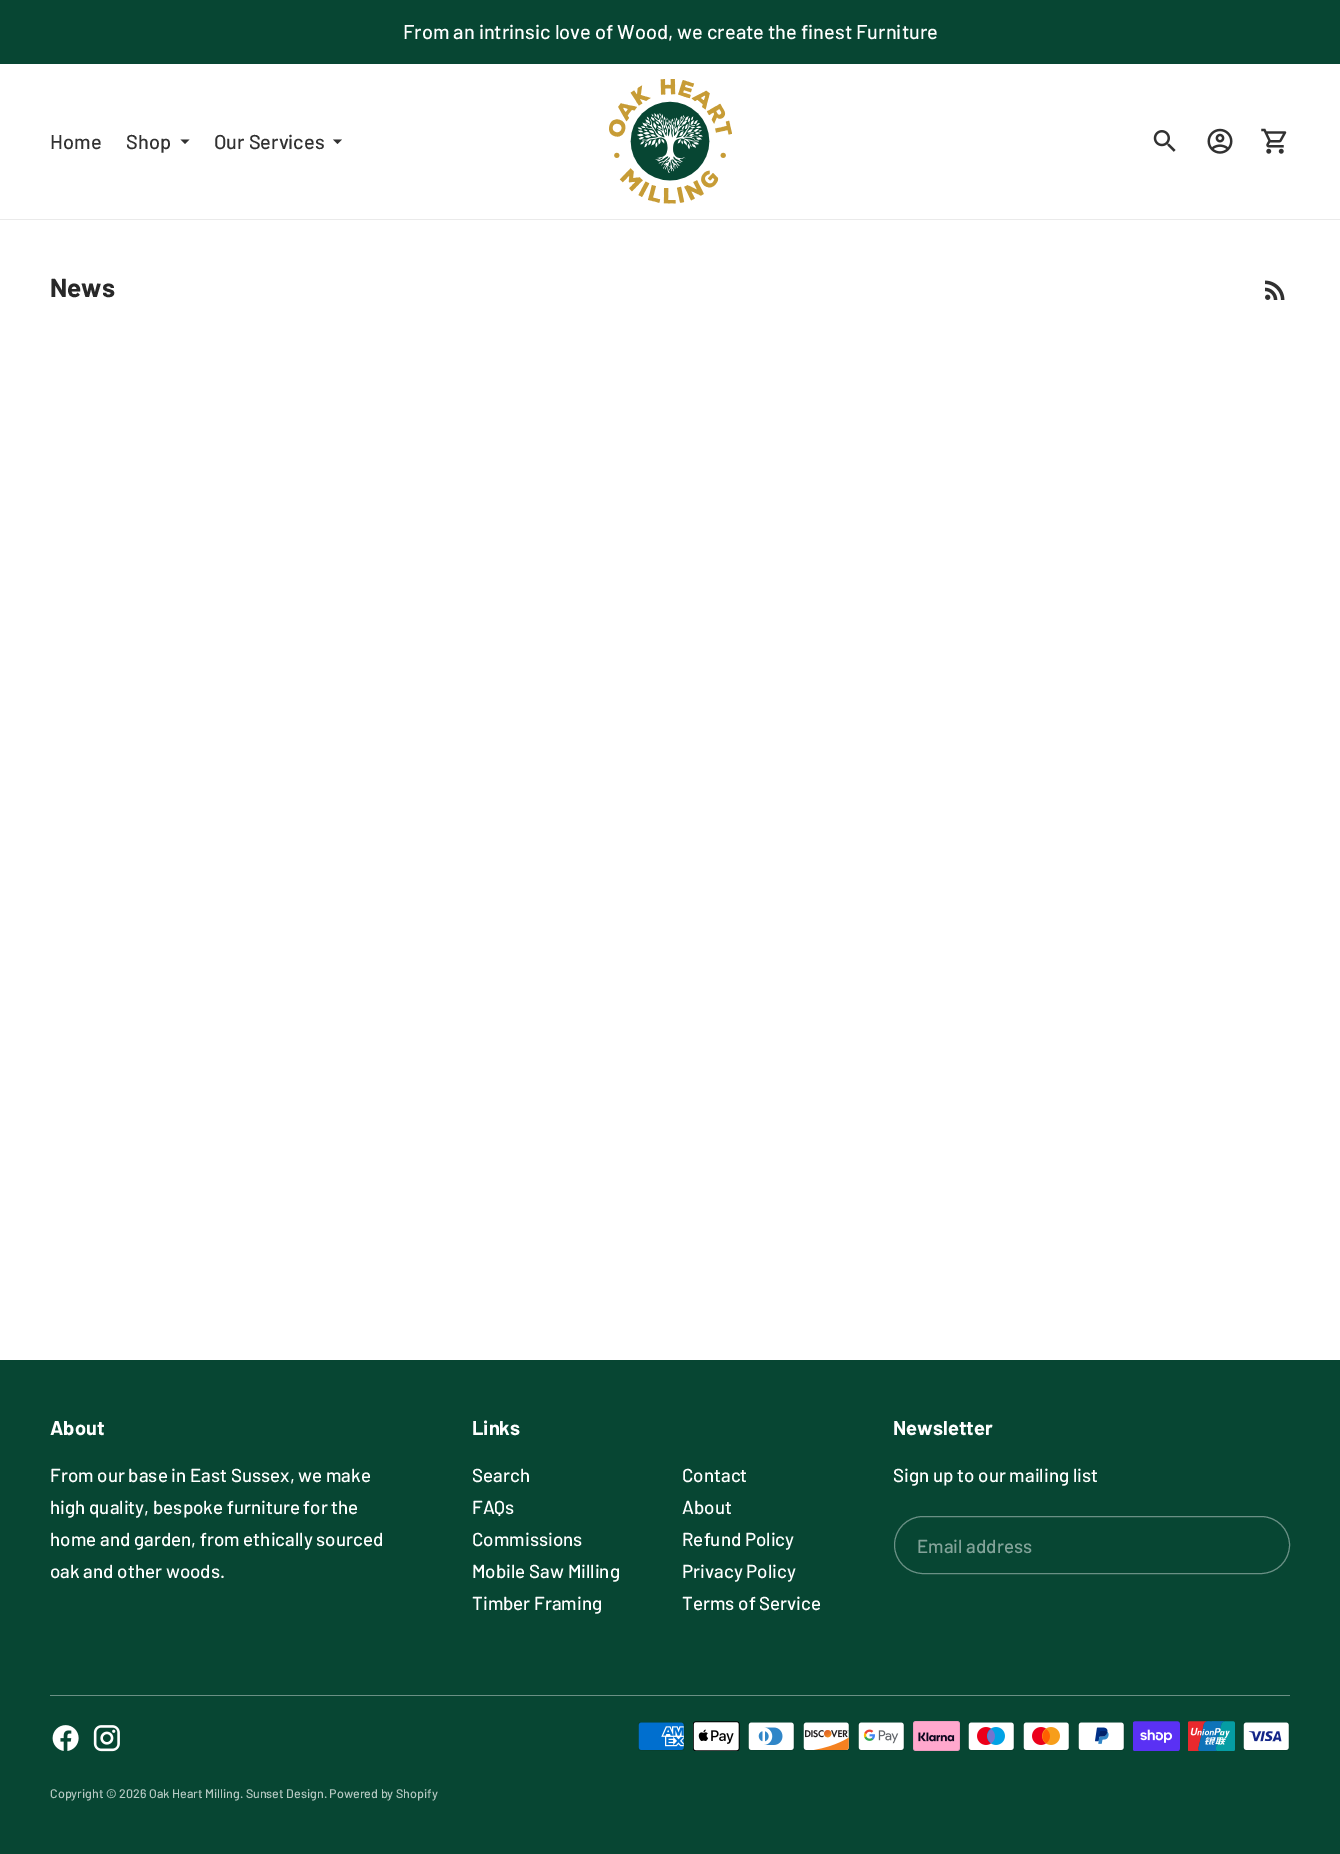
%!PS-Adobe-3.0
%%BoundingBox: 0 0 1340 1854
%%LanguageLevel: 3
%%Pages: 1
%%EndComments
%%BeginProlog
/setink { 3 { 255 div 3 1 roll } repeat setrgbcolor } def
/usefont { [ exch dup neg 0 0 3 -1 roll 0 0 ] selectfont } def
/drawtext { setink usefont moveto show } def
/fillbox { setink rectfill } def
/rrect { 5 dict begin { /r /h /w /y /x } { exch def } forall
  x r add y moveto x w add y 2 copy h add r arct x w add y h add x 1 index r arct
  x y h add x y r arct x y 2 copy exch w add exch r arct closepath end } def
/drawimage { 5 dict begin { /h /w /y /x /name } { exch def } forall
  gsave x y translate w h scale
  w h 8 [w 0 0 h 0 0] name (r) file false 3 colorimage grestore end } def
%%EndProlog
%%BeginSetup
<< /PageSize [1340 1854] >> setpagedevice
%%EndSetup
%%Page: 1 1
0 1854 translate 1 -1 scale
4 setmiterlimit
0 0 1340 1854 255 255 255 fillbox
0 0 1340 64 7 70 51 fillbox
(From an intrinsic love of Wood, we create the finest Furniture) 403 39 /Barlow-Medium 20 255 255 255 drawtext
0 219 1340 1 234 234 234 fillbox
(Home) 50 149 /Barlow-Medium 20 49 49 49 drawtext
(Shop) 126 149 /Barlow-Medium 20 49 49 49 drawtext
180.5 139.5 moveto 185 144 lineto 189.5 139.5 lineto closepath fill
(Our Services) 214 149 /Barlow-Medium 20 49 49 49 drawtext
333 139.5 moveto 337.5 144 lineto 342 139.5 lineto closepath fill
(assets/img1.rgb) 609 79 123 125 drawimage
(assets/img2.rgb) 1153 130 23 22 drawimage
(assets/img3.rgb) 1207 128 26 26 drawimage
(assets/img4.rgb) 1261 128 26 26 drawimage
(News) 50 297 /Barlow-Bold 26 40 40 40 drawtext
(assets/img5.rgb) 1265 280 20 20 drawimage
0 1360 1340 494 7 70 51 fillbox
(About) 50 1435 /Barlow-Bold 20 255 255 255 drawtext
(From our base in East Sussex, we make) 50 1482 /Barlow-Medium 18.75 255 255 255 drawtext
(high quality, bespoke furniture for the) 50 1514 /Barlow-Medium 18.75 255 255 255 drawtext
(home and garden, from ethically sourced) 50 1546 /Barlow-Medium 18.75 255 255 255 drawtext
(oak and other woods.) 50 1578 /Barlow-Medium 18.75 255 255 255 drawtext
(Links) 472 1435 /Barlow-Bold 20 255 255 255 drawtext
(Search) 472 1482 /Barlow-Medium 18.75 255 255 255 drawtext
(Contact) 682 1482 /Barlow-Medium 18.75 255 255 255 drawtext
(FAQs) 472 1514 /Barlow-Medium 18.75 255 255 255 drawtext
(About) 682 1514 /Barlow-Medium 18.75 255 255 255 drawtext
(Commissions) 472 1546 /Barlow-Medium 18.75 255 255 255 drawtext
(Refund Policy) 682 1546 /Barlow-Medium 18.75 255 255 255 drawtext
(Mobile Saw Milling) 472 1578 /Barlow-Medium 18.75 255 255 255 drawtext
(Privacy Policy) 682 1578 /Barlow-Medium 18.75 255 255 255 drawtext
(Timber Framing) 472 1610 /Barlow-Medium 18.75 255 255 255 drawtext
(Terms of Service) 682 1610 /Barlow-Medium 18.75 255 255 255 drawtext
(Newsletter) 893 1435 /Barlow-Bold 20 255 255 255 drawtext
(Sign up to our mailing list) 893 1482 /Barlow-Medium 18.75 255 255 255 drawtext
106 144 133 setink
894.5 1516.5 395 57 28.5 rrect stroke
(Email address) 917 1553 /Barlow-Medium 18.75 131 163 153 drawtext
50 1695 1240 1 106 144 133 fillbox
(assets/img6.rgb) 52 1725 27 26 drawimage
(assets/img7.rgb) 93 1725 27 27 drawimage
(assets/img8.rgb) 638 1722 47 29 drawimage
(assets/img9.rgb) 693 1721 47 30 drawimage
(assets/img10.rgb) 748 1722 47 29 drawimage
(assets/img11.rgb) 803 1722 47 29 drawimage
(assets/img12.rgb) 858 1722 47 29 drawimage
(assets/img13.rgb) 913 1721 47 30 drawimage
(assets/img14.rgb) 968 1722 47 29 drawimage
(assets/img15.rgb) 1023 1722 47 29 drawimage
(assets/img16.rgb) 1078 1722 47 29 drawimage
(assets/img17.rgb) 1133 1721 47 30 drawimage
(assets/img18.rgb) 1188 1721 47 30 drawimage
(assets/img19.rgb) 1243 1722 47 29 drawimage
(Copyright © 2026 Oak Heart Milling. Sunset Design. Powered by Shopify) 50 1798 /Barlow-Medium 12.5 181 200 194 drawtext
showpage
%%EOF
